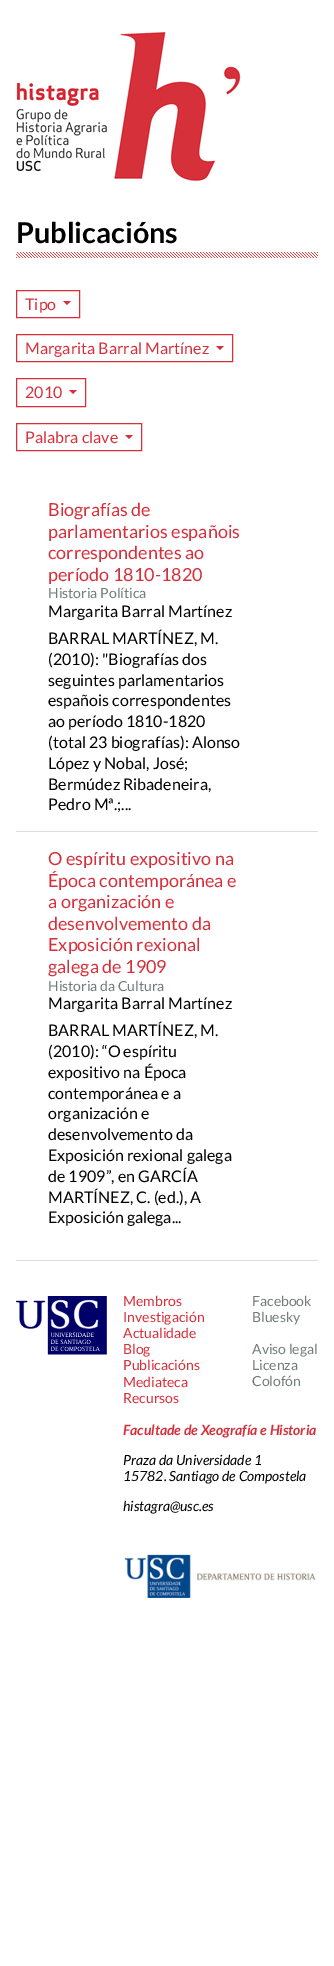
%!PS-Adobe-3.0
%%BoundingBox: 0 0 334 1966
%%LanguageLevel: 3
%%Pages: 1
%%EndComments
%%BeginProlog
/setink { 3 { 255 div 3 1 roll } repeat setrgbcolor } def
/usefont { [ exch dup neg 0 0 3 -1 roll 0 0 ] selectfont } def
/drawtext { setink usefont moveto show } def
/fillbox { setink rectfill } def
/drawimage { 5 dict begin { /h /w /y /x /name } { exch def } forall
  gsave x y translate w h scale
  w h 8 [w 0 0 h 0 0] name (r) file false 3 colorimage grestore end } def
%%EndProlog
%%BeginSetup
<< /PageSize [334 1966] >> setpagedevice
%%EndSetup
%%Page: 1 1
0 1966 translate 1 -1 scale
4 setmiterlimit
0 0 334 1966 255 255 255 fillbox
(assets/img1.rgb) 16 32 225 149 drawimage
(assets/img2.rgb) 16 252 302 6 drawimage
(Publicacións) 16 243 /Lato-Bold 28.75 0 0 0 drawtext
214 49 59 setink
16.5 290.5 63 27 rectstroke
(Tipo) 25 310 /Lato-Regular 16 214 49 59 drawtext
63 301 moveto 71 301 lineto 67 305 lineto closepath fill
16.5 334.5 216 27 rectstroke
(Margarita Barral Martínez) 25 354 /Lato-Regular 16 214 49 59 drawtext
216 346 moveto 224 346 lineto 220 350 lineto closepath fill
16.5 378.5 69 28 rectstroke
(2010) 25 398 /Lato-Regular 16 214 49 59 drawtext
69 390 moveto 77 390 lineto 73 394 lineto closepath fill
16.5 423.5 125 27 rectstroke
(Palabra clave) 25 443 /Lato-Regular 16 214 49 59 drawtext
125 435 moveto 133 435 lineto 129 439 lineto closepath fill
16 831 302 1 221 221 221 fillbox
(Biografías de) 48 516 /Lato-Regular 18 214 49 59 drawtext
(parlamentarios españois) 48 538 /Lato-Regular 18 214 49 59 drawtext
(correspondentes ao) 48 559 /Lato-Regular 18 214 49 59 drawtext
(período 1810-1820) 48 581 /Lato-Regular 18 214 49 59 drawtext
(Historia Política) 48 598 /Lato-Regular 14 113 125 125 drawtext
(Margarita Barral Martínez) 48 617 /Lato-Regular 16 0 0 0 drawtext
(BARRAL MARTÍNEZ, M.) 48 644 /Lato-Regular 16 0 0 0 drawtext
(\(2010\): "Biografías dos) 48 665 /Lato-Regular 16 0 0 0 drawtext
(seguintes parlamentarios) 48 686 /Lato-Regular 16 0 0 0 drawtext
(españois correspondentes) 48 706 /Lato-Regular 16 0 0 0 drawtext
(ao período 1810-1820) 48 727 /Lato-Regular 16 0 0 0 drawtext
(\(total 23 biografías\): Alonso) 48 748 /Lato-Regular 16 0 0 0 drawtext
(López y Nobal, José;) 48 769 /Lato-Regular 16 0 0 0 drawtext
(Bermúdez Ribadeneira,) 48 790 /Lato-Regular 16 0 0 0 drawtext
(Pedro Mª.;...) 48 810 /Lato-Regular 16 0 0 0 drawtext
(O espíritu expositivo na) 48 865 /Lato-Regular 18 214 49 59 drawtext
(Época contemporánea e) 48 887 /Lato-Regular 18 214 49 59 drawtext
(a organización e) 48 908 /Lato-Regular 18 214 49 59 drawtext
(desenvolvemento da) 48 930 /Lato-Regular 18 214 49 59 drawtext
(Exposición rexional) 48 951 /Lato-Regular 18 214 49 59 drawtext
(galega de 1909) 48 973 /Lato-Regular 18 214 49 59 drawtext
(Historia da Cultura) 48 991 /Lato-Regular 14 113 125 125 drawtext
(Margarita Barral Martínez) 48 1009 /Lato-Regular 16 0 0 0 drawtext
(BARRAL MARTÍNEZ, M.) 48 1036 /Lato-Regular 16 0 0 0 drawtext
(\(2010\): “O espíritu) 48 1057 /Lato-Regular 16 0 0 0 drawtext
(expositivo na Época) 48 1078 /Lato-Regular 16 0 0 0 drawtext
(contemporánea e a) 48 1099 /Lato-Regular 16 0 0 0 drawtext
(organización e) 48 1119 /Lato-Regular 16 0 0 0 drawtext
(desenvolvemento da) 48 1140 /Lato-Regular 16 0 0 0 drawtext
(Exposición rexional galega) 48 1161 /Lato-Regular 16 0 0 0 drawtext
(de 1909”, en GARCÍA) 48 1182 /Lato-Regular 16 0 0 0 drawtext
(MARTÍNEZ, C. \(ed.\), A) 48 1203 /Lato-Regular 16 0 0 0 drawtext
(Exposición galega...) 48 1223 /Lato-Regular 16 0 0 0 drawtext
16 1260 302 1 221 221 221 fillbox
(assets/img3.rgb) 16 1296 91 59 drawimage
(Membros) 123 1306 /Lato-Regular 14 214 49 59 drawtext
(Investigación) 123 1322 /Lato-Regular 14 214 49 59 drawtext
(Actualidade) 123 1338 /Lato-Regular 14 214 49 59 drawtext
(Blog) 123 1354 /Lato-Regular 14 214 49 59 drawtext
(Publicacións) 123 1370 /Lato-Regular 14 214 49 59 drawtext
(Mediateca) 123 1387 /Lato-Regular 14 214 49 59 drawtext
(Recursos) 123 1403 /Lato-Regular 14 214 49 59 drawtext
(Facebook) 252 1306 /Lato-Regular 14 113 125 125 drawtext
(Bluesky) 252 1322 /Lato-Regular 14 113 125 125 drawtext
(Aviso legal) 252 1354 /Lato-Regular 14 113 125 125 drawtext
(Licenza) 252 1370 /Lato-Regular 14 113 125 125 drawtext
(Colofón) 252 1386 /Lato-Regular 14 113 125 125 drawtext
(Facultade de Xeografía e Historia) 123 1435 /Lato-BoldItalic 14 214 49 59 drawtext
(Praza da Universidade 1) 123 1465 /Lato-Italic 14 0 0 0 drawtext
(15782. Santiago de Compostela) 123 1481 /Lato-Italic 14 0 0 0 drawtext
(histagra@usc.es) 123 1511 /Lato-Italic 14 0 0 0 drawtext
(assets/img4.rgb) 124 1554 192 44 drawimage
showpage
%%EOF
